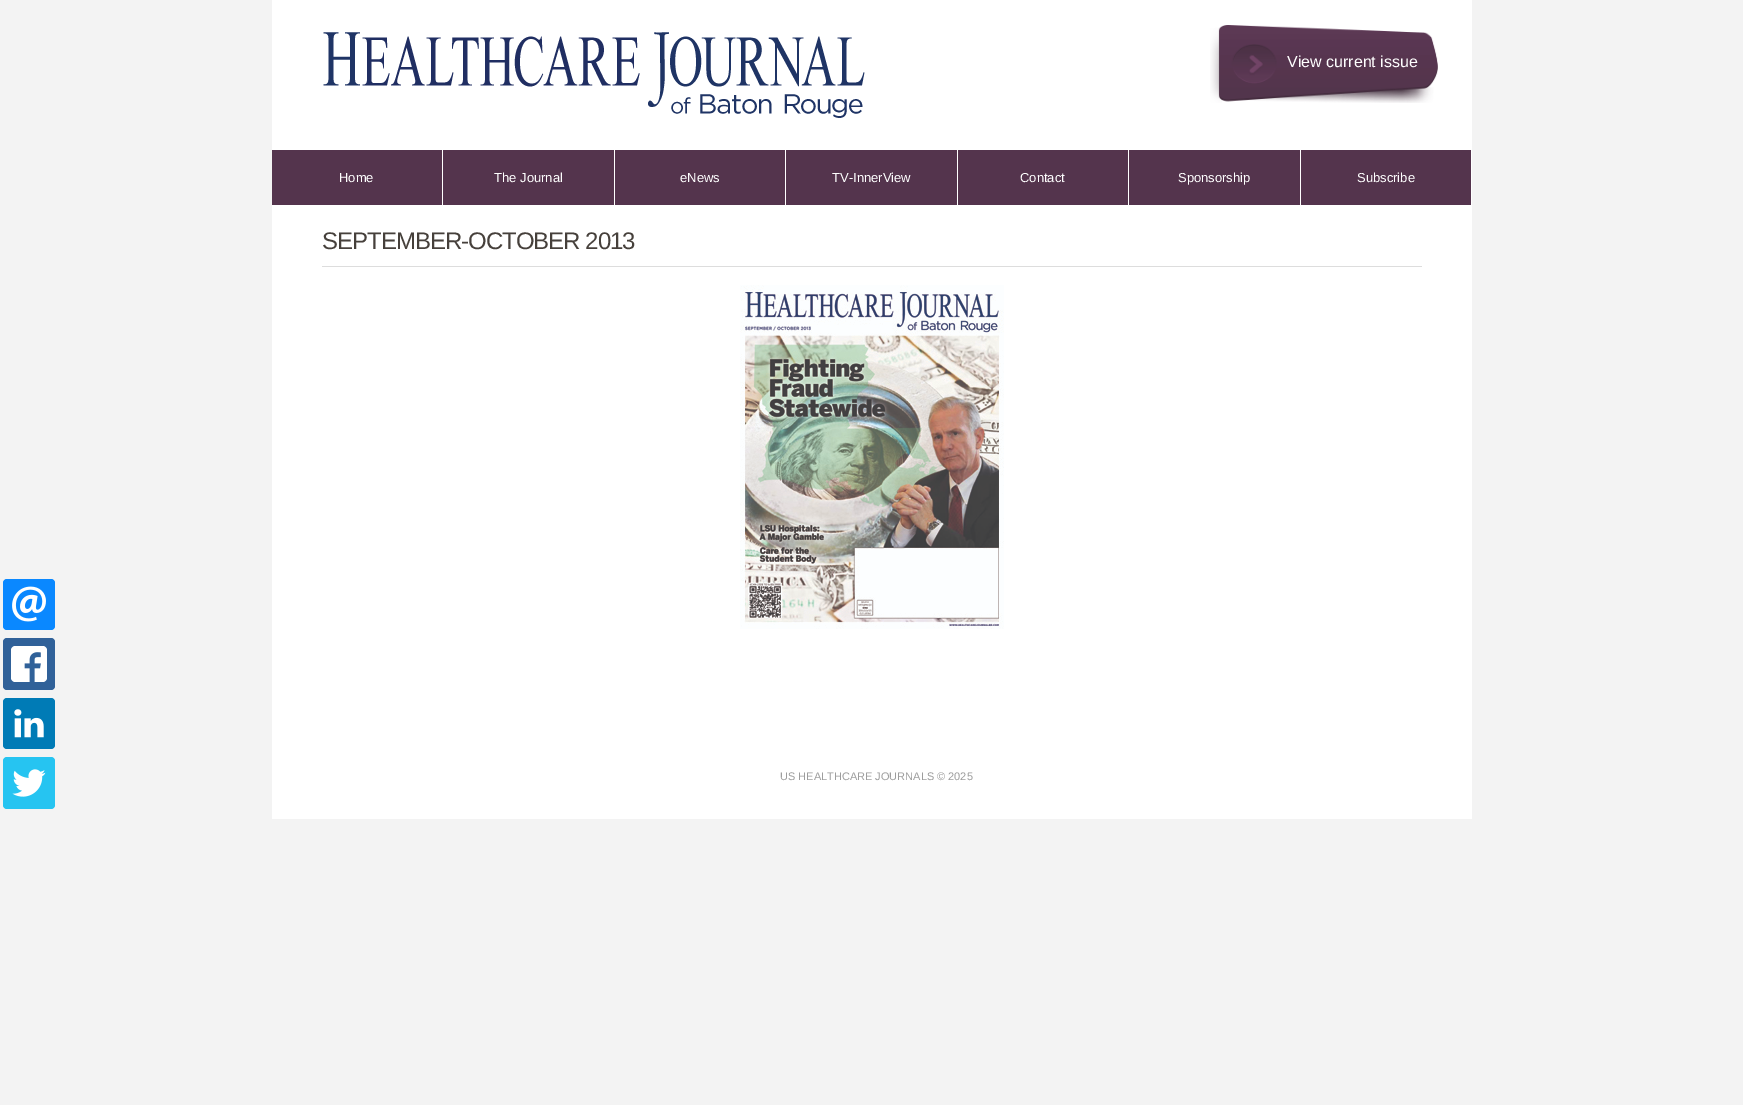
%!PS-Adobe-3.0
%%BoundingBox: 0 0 1743 1105
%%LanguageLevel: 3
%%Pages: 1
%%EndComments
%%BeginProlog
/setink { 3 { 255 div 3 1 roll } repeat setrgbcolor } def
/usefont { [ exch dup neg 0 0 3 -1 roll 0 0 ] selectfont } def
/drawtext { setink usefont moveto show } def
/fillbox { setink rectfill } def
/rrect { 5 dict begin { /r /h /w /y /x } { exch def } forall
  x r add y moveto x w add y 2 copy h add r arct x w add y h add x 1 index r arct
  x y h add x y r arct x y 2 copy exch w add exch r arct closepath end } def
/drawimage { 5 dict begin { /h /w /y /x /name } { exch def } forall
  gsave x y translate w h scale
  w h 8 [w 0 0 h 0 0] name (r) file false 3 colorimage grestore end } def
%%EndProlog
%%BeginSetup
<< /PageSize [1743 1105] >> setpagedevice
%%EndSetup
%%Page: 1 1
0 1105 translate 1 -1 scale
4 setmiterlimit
0 0 1743 1105 243 243 243 fillbox
272 0 1200 819 255 255 255 fillbox
(assets/img1.rgb) 323 32 542 86 drawimage
(assets/img2.rgb) 1210 25 228 78 drawimage
(View current issue) 1287 67 /LiberationSans-Regular 16 255 255 255 drawtext
272 150 170 55 84 52 77 fillbox
(Home) 339 182 /LiberationSans-Regular 13 255 255 255 drawtext
443 150 171 55 84 52 77 fillbox
(The Journal) 494 182 /LiberationSans-Regular 13 255 255 255 drawtext
615 150 170 55 84 52 77 fillbox
(eNews) 680 182 /LiberationSans-Regular 13 255 255 255 drawtext
786 150 171 55 84 52 77 fillbox
(TV-InnerView) 832 182 /LiberationSans-Regular 13 255 255 255 drawtext
958 150 170 55 84 52 77 fillbox
(Contact) 1020 182 /LiberationSans-Regular 13 255 255 255 drawtext
1129 150 171 55 84 52 77 fillbox
(Sponsorship) 1178 182 /LiberationSans-Regular 13 255 255 255 drawtext
1301 150 170 55 84 52 77 fillbox
(Subscribe) 1357 182 /LiberationSans-Regular 13 255 255 255 drawtext
322 266 1100 1 221 221 221 fillbox
/LiberationSans-Regular 24 usefont
70 64 59 setink
322 249 moveto -1 0 (SEPTEMBER-OCTOBER 2013) ashow
(assets/img3.rgb) 740 285 264 344 drawimage
10 136 255 setink
3 579 52 51 4 rrect fill
(assets/img4.rgb) 12 586 34 36 drawimage
48 97 153 setink
3 638 52 52 4 rrect fill
(assets/img5.rgb) 11 646 36 36 drawimage
0 123 182 setink
3 698 52 51 4 rrect fill
(assets/img6.rgb) 14 709 30 29 drawimage
38 196 241 setink
3 757 52 52 4 rrect fill
(assets/img7.rgb) 12 769 34 28 drawimage
(US HEALTHCARE JOURNALS © 2025) 780 780 /LiberationSans-Regular 11 157 157 157 drawtext
showpage
%%EOF
